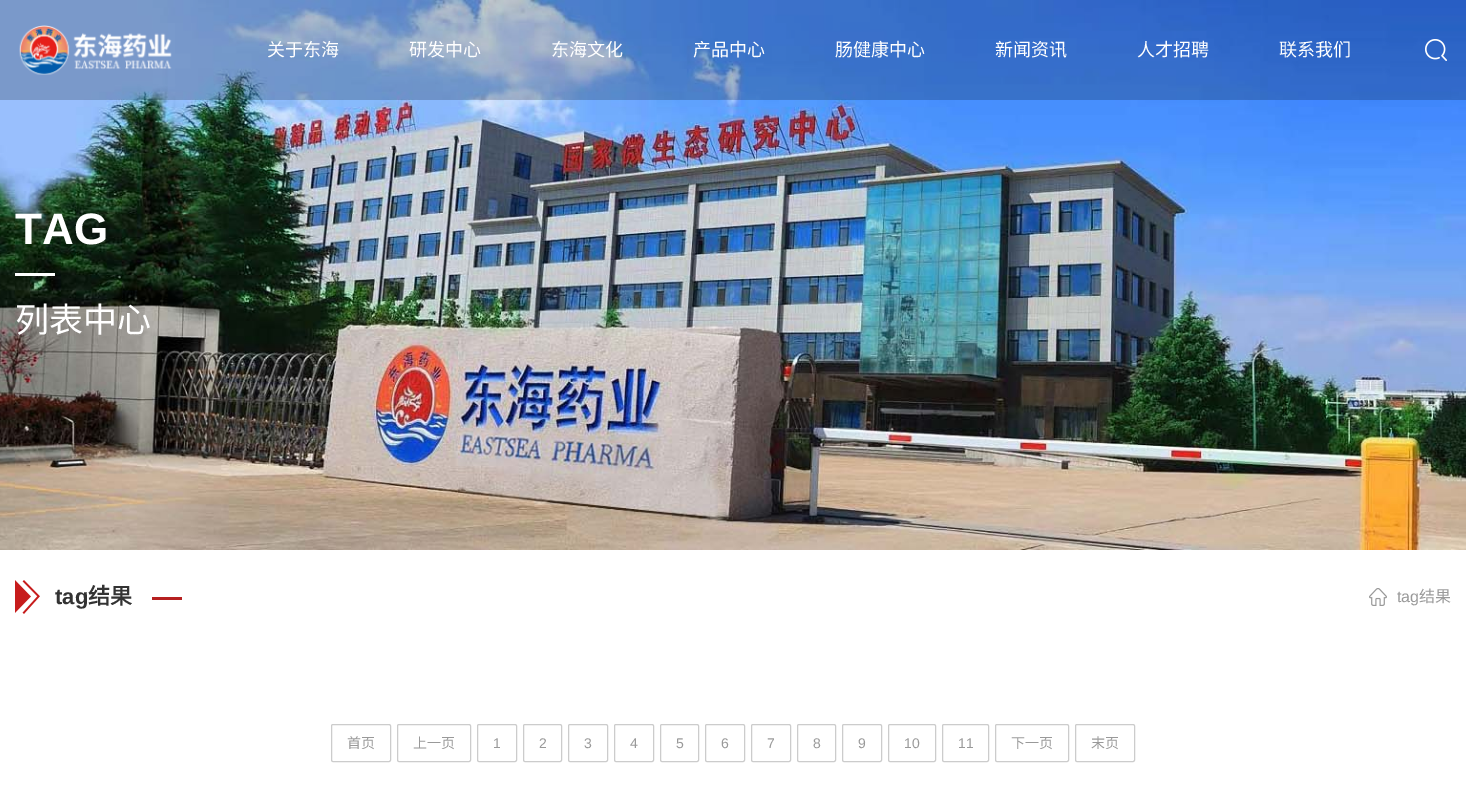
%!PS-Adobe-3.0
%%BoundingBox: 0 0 1466 800
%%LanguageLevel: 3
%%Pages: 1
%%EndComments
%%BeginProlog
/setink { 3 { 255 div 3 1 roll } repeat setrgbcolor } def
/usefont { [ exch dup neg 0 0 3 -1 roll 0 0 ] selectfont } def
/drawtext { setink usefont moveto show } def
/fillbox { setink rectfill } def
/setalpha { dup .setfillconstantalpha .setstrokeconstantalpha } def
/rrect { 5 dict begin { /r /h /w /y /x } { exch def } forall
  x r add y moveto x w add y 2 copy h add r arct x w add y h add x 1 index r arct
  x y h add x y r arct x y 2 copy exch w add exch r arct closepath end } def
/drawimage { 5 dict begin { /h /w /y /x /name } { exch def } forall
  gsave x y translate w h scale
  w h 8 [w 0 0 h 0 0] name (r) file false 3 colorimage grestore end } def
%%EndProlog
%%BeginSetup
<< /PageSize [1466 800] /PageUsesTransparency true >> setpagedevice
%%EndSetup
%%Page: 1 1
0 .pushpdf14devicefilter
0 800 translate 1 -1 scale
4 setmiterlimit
0 0 1466 800 255 255 255 fillbox
(assets/img3.rgb) 0 0 1466 550 drawimage
0.2 setalpha
0 0 1466 100 0 0 0 fillbox
1 setalpha
(assets/img1.rgb) 19 25 153 50 drawimage
(关于东海) 267 56 /NotoSansCJKSC-Regular 18 255 255 255 drawtext
(研发中心) 409 56 /NotoSansCJKSC-Regular 18 255 255 255 drawtext
(东海文化) 551 56 /NotoSansCJKSC-Regular 18 255 255 255 drawtext
(产品中心) 693 56 /NotoSansCJKSC-Regular 18 255 255 255 drawtext
(肠健康中心) 835 56 /NotoSansCJKSC-Regular 18 255 255 255 drawtext
(新闻资讯) 995 56 /NotoSansCJKSC-Regular 18 255 255 255 drawtext
(人才招聘) 1137 56 /NotoSansCJKSC-Regular 18 255 255 255 drawtext
(联系我们) 1279 56 /NotoSansCJKSC-Regular 18 255 255 255 drawtext
(assets/img2.rgb) 1425 39 22 22 drawimage
(TAG) 15 244 /LiberationSans-Bold 44 255 255 255 drawtext
15 273 40 3 255 255 255 fillbox
(列表中心) 15 332 /NotoSansCJKSC-Regular 34 255 255 255 drawtext
(assets/img4.rgb) 15 580 25 34 drawimage
(tag) 55 604 /LiberationSans-Bold 22 51 51 51 drawtext
(结果) 88 604 /NotoSansCJKSC-Bold 22 51 51 51 drawtext
152 597 30 3 182 32 32 fillbox
(assets/img5.rgb) 1369 588 18 18 drawimage
(tag) 1397 602 /LiberationSans-Regular 16 153 153 153 drawtext
(结果) 1419 602 /NotoSansCJKSC-Regular 16 153 153 153 drawtext
204 204 204 setink
331.5 724.5 59 37 1.5 rrect stroke
(首页) 347 748 /NotoSansCJKSC-Regular 14 153 153 153 drawtext
204 204 204 setink
397.5 724.5 73 37 1.5 rrect stroke
(上一页) 413 748 /NotoSansCJKSC-Regular 14 153 153 153 drawtext
204 204 204 setink
477.5 724.5 39 37 1.5 rrect stroke
(1) 493 748 /LiberationSans-Regular 14 153 153 153 drawtext
204 204 204 setink
523.5 724.5 38 37 1.5 rrect stroke
(2) 539 748 /LiberationSans-Regular 14 153 153 153 drawtext
204 204 204 setink
568.5 724.5 39 37 1.5 rrect stroke
(3) 584 748 /LiberationSans-Regular 14 153 153 153 drawtext
204 204 204 setink
614.5 724.5 39 37 1.5 rrect stroke
(4) 630 748 /LiberationSans-Regular 14 153 153 153 drawtext
204 204 204 setink
660.5 724.5 38 37 1.5 rrect stroke
(5) 676 748 /LiberationSans-Regular 14 153 153 153 drawtext
204 204 204 setink
705.5 724.5 39 37 1.5 rrect stroke
(6) 721 748 /LiberationSans-Regular 14 153 153 153 drawtext
204 204 204 setink
751.5 724.5 39 37 1.5 rrect stroke
(7) 767 748 /LiberationSans-Regular 14 153 153 153 drawtext
204 204 204 setink
797.5 724.5 38 37 1.5 rrect stroke
(8) 813 748 /LiberationSans-Regular 14 153 153 153 drawtext
204 204 204 setink
842.5 724.5 39 37 1.5 rrect stroke
(9) 858 748 /LiberationSans-Regular 14 153 153 153 drawtext
204 204 204 setink
888.5 724.5 47 37 1.5 rrect stroke
(10) 904 748 /LiberationSans-Regular 14 153 153 153 drawtext
204 204 204 setink
942.5 724.5 46 37 1.5 rrect stroke
(11) 958 748 /LiberationSans-Regular 14 153 153 153 drawtext
204 204 204 setink
995.5 724.5 73 37 1.5 rrect stroke
(下一页) 1011 748 /NotoSansCJKSC-Regular 14 153 153 153 drawtext
204 204 204 setink
1075.5 724.5 59 37 1.5 rrect stroke
(末页) 1091 748 /NotoSansCJKSC-Regular 14 153 153 153 drawtext
.poppdf14devicefilter showpage
%%EOF
